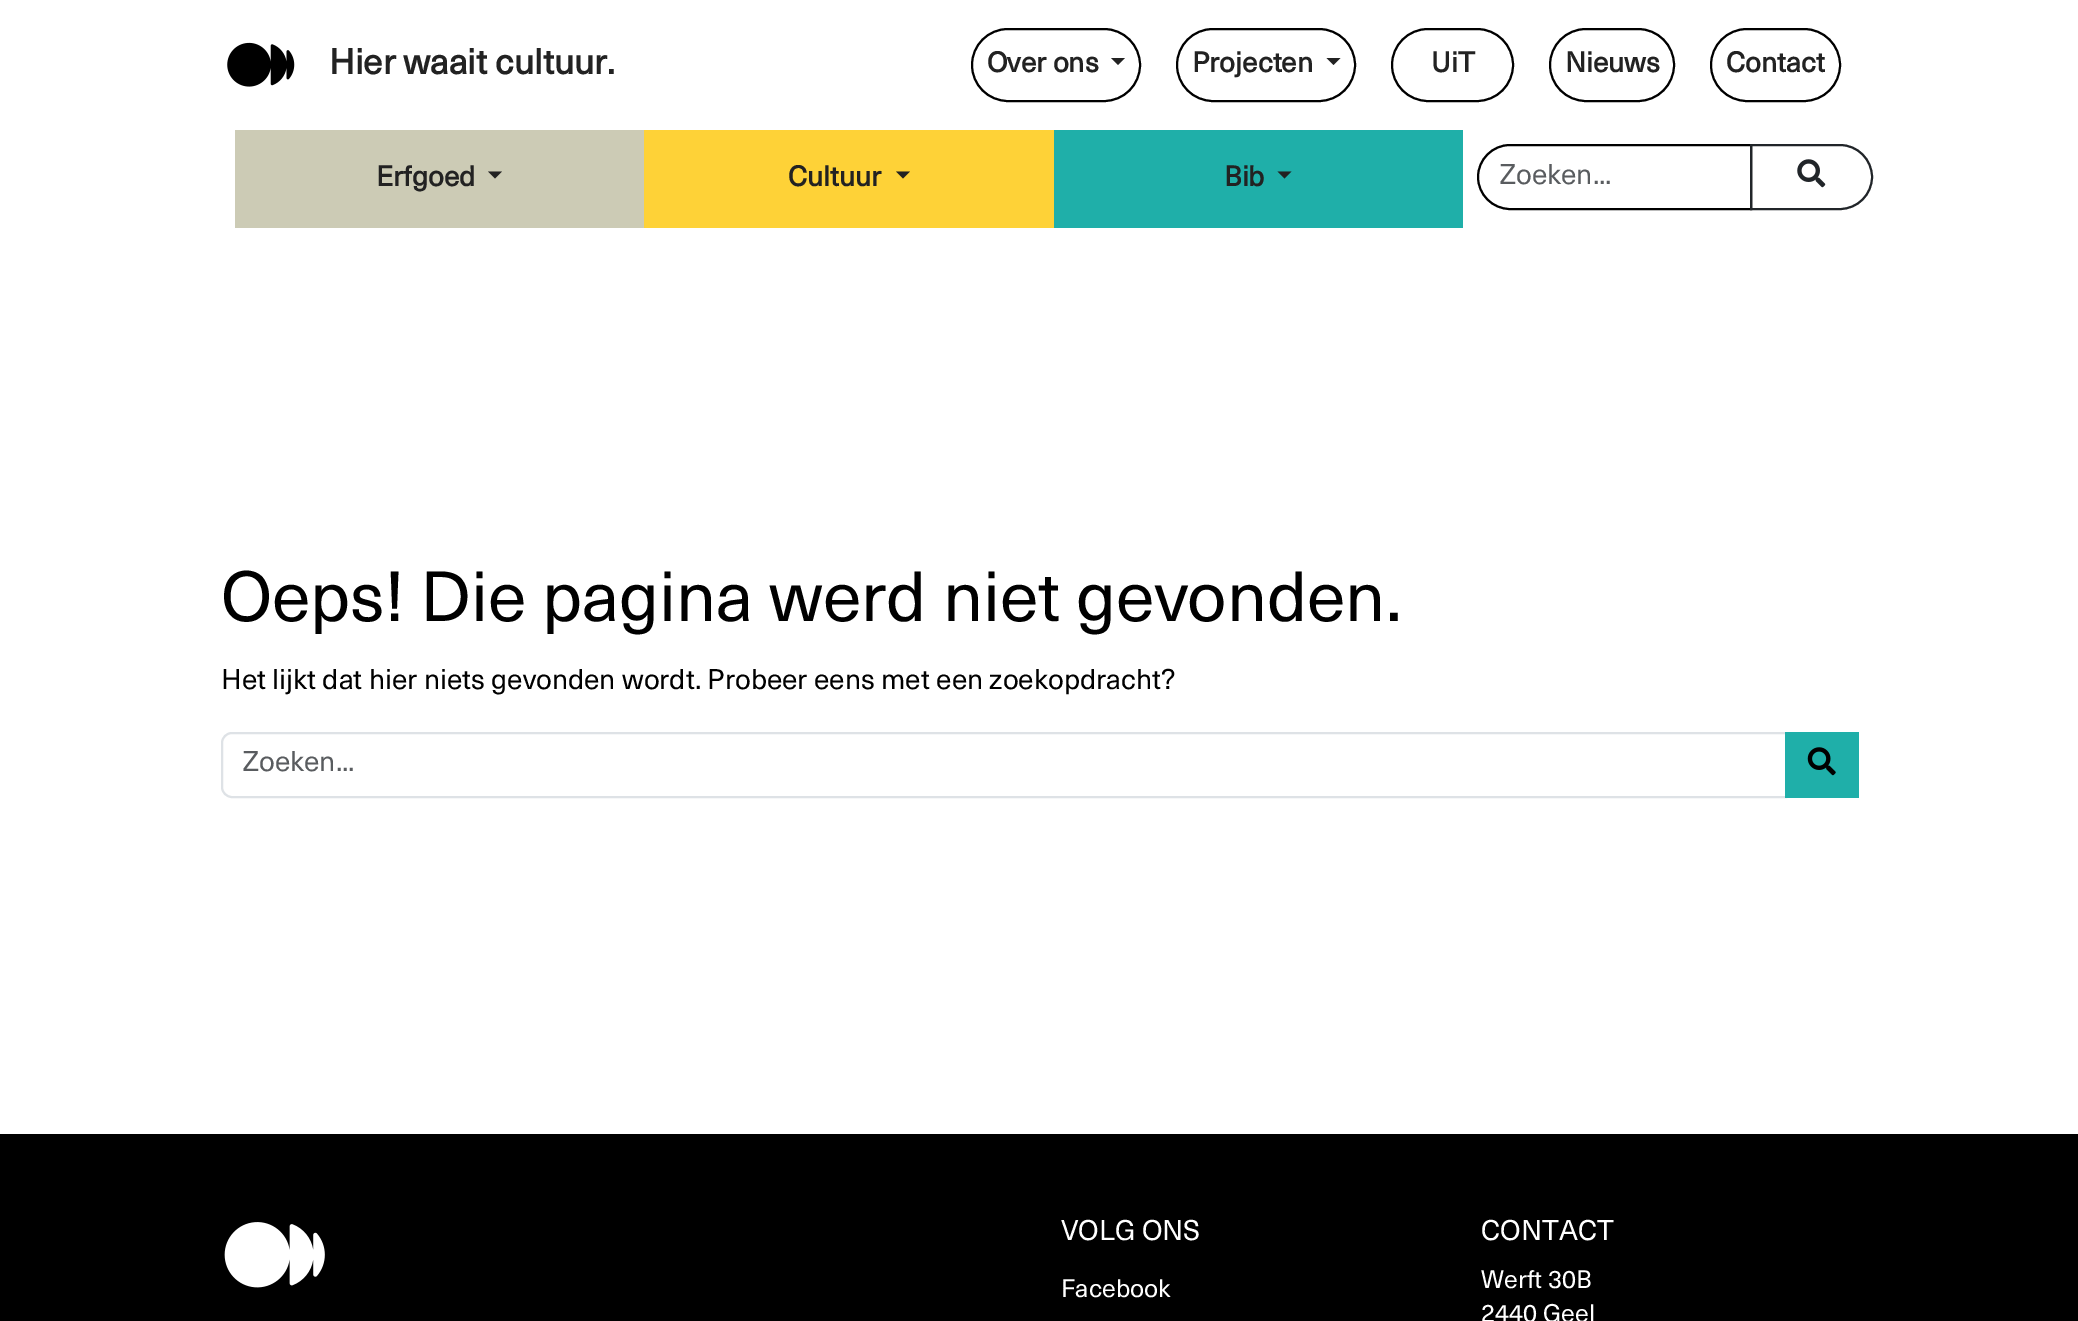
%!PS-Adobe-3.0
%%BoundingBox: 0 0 2078 1321
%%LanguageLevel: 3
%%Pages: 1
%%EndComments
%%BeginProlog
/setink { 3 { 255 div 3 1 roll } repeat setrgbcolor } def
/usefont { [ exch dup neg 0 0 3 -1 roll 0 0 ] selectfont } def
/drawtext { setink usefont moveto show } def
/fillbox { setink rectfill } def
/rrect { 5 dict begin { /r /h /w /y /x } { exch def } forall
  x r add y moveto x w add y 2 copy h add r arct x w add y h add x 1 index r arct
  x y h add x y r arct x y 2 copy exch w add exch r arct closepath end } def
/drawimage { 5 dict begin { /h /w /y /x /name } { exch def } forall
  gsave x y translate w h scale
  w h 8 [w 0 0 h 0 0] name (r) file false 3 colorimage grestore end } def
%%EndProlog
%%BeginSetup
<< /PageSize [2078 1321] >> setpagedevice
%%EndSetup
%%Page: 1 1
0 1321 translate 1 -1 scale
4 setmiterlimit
0 0 2078 1321 255 255 255 fillbox
(assets/img1.rgb) 227 42 68 45 drawimage
(Hier waait cultuur.) 329 74 /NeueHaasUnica-Bold 35 34 34 34 drawtext
0 0 0 setink
2 setlinewidth
972 29 168 72 36 rrect stroke
(Over ons) 987 72 /NeueHaasUnica-Bold 28 34 34 34 drawtext
1111 58 moveto 1125 58 lineto 1118 65 lineto closepath fill
0 0 0 setink
1177 29 178 72 36 rrect stroke
(Projecten) 1192 72 /NeueHaasUnica-Bold 28 34 34 34 drawtext
1326.5 58 moveto 1340.5 58 lineto 1333.5 65 lineto closepath fill
0 0 0 setink
1392 29 121 72 36 rrect stroke
(UiT) 1431 72 /NeueHaasUnica-Bold 28 34 34 34 drawtext
0 0 0 setink
1550 29 124 72 36 rrect stroke
(Nieuws) 1565 72 /NeueHaasUnica-Bold 28 34 34 34 drawtext
0 0 0 setink
1711 29 129 72 36 rrect stroke
(Contact) 1726 72 /NeueHaasUnica-Bold 28 34 34 34 drawtext
235 130 409 98 204 203 181 fillbox
(Erfgoed) 376 186 /NeueHaasUnica-Bold 28 34 34 34 drawtext
488 171.5 moveto 502 171.5 lineto 495 178.5 lineto closepath fill
644 130 410 98 254 210 55 fillbox
(Cultuur) 788 186 /NeueHaasUnica-Bold 28 34 34 34 drawtext
896 171.5 moveto 910 171.5 lineto 903 178.5 lineto closepath fill
1054 130 409 98 31 175 169 fillbox
(Bib) 1224 186 /NeueHaasUnica-Bold 28 34 34 34 drawtext
1277.5 171.5 moveto 1291.5 171.5 lineto 1284.5 178.5 lineto closepath fill
0 0 0 setink
1510 145 moveto 1751 145 lineto 1751 209 lineto 1510 209 lineto 1492.5 209 1478 194.5 1478 177 curveto 1478 159.5 1492.5 145 1510 145 curveto closepath stroke
(Zoeken...) 1500 184 /NeueHaasUnica-Regular 28 89 92 95 drawtext
33 37 41 setink
1751 145 moveto 1840 145 lineto 1857.5 145 1872 159.5 1872 177 curveto 1872 194.5 1857.5 209 1840 209 curveto 1751 209 lineto closepath stroke
(assets/img2.rgb) 1797 159 29 29 drawimage
(Oeps! Die pagina werd niet gevonden.) 221 621 /NeueHaasUnica-Regular 69.7 0 0 0 drawtext
(Het lijkt dat hier niets gevonden wordt. Probeer eens met een zoekopdracht?) 221 689 /NeueHaasUnica-Regular 28 0 0 0 drawtext
222 226 230 setink
232 733 moveto 1786 733 lineto 1786 797 lineto 232 797 lineto 226.5 797 222 792.5 222 787 curveto 222 743 lineto 222 737.5 226.5 733 232 733 curveto closepath stroke
(Zoeken...) 243 771 /NeueHaasUnica-Regular 28 89 92 95 drawtext
1785 732 74 66 31 175 169 fillbox
(assets/img3.rgb) 1807 747 29 29 drawimage
0 1134 2078 187 0 0 0 fillbox
(assets/img4.rgb) 224 1222 101 66 drawimage
(VOLG ONS) 1061 1240 /NeueHaasUnica-Regular 28 255 255 255 drawtext
(Facebook) 1061 1297 /NeueHaasUnica-Regular 25 255 255 255 drawtext
(CONTACT) 1481 1240 /NeueHaasUnica-Regular 28 255 255 255 drawtext
(Werft 30B) 1481 1288 /NeueHaasUnica-Regular 25 255 255 255 drawtext
(2440 Geel) 1481 1322 /NeueHaasUnica-Regular 25 255 255 255 drawtext
showpage
%%EOF
